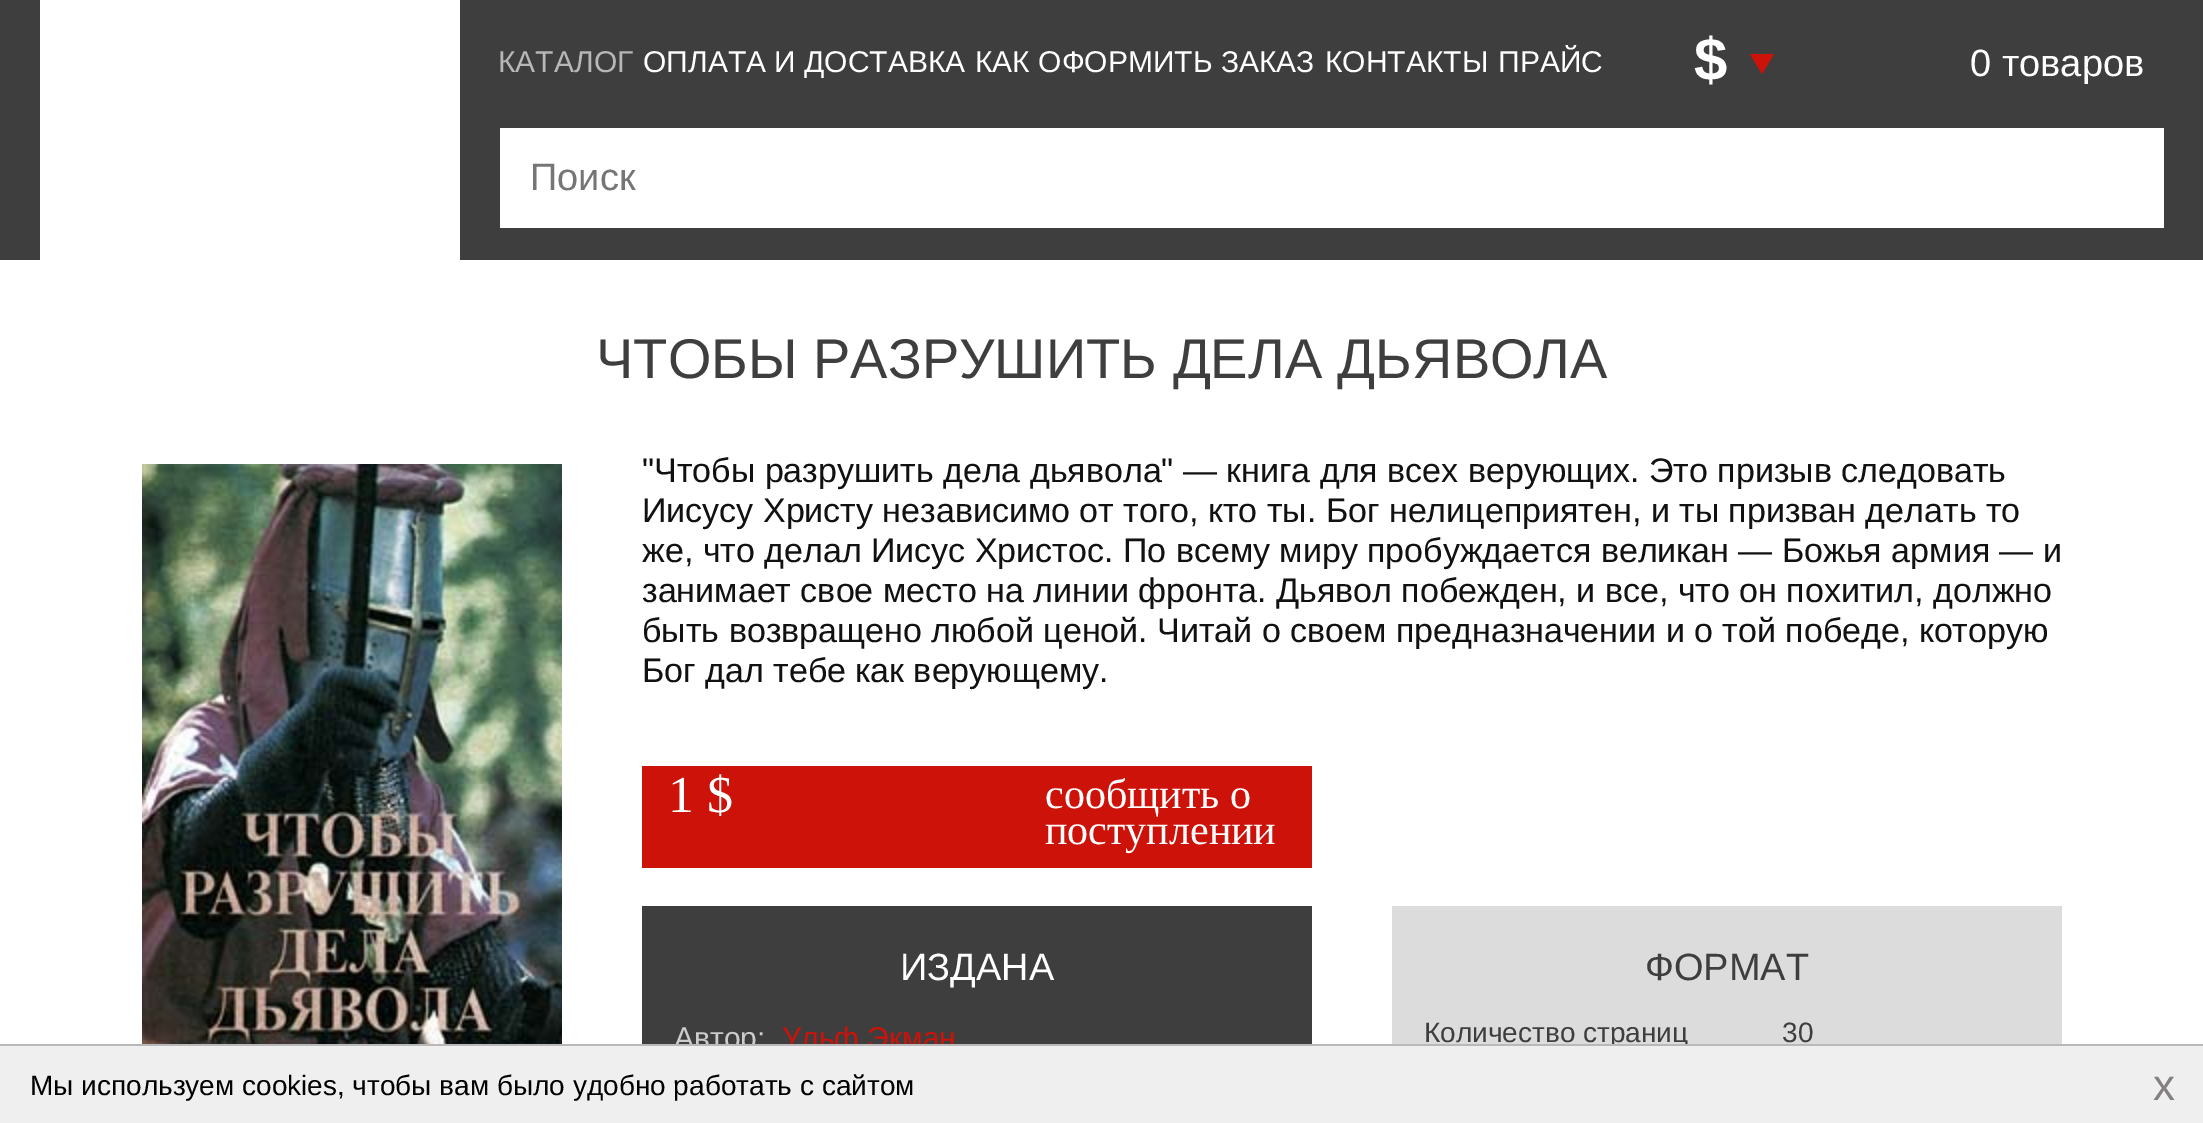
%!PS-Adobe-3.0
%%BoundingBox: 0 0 2203 1123
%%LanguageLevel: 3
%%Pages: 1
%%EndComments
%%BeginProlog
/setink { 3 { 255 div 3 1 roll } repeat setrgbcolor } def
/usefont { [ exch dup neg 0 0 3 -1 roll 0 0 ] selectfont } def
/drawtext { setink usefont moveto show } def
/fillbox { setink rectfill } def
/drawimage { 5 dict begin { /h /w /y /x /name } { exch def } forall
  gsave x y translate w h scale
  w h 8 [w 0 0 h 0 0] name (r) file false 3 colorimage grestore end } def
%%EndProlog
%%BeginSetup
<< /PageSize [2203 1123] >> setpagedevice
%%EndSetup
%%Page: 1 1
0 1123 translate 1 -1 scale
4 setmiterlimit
0 0 2203 1123 255 255 255 fillbox
0 0 2203 260 62 62 62 fillbox
40 0 420 260 255 255 255 fillbox
(КАТАЛОГ) 498 72 /LiberationSans-Regular 30 183 183 183 drawtext
(ОПЛАТА И ДОСТАВКА) 643 72 /LiberationSans-Regular 30 255 255 255 drawtext
(КАК ОФОРМИТЬ ЗАКАЗ) 975 72 /LiberationSans-Regular 30 255 255 255 drawtext
(КОНТАКТЫ) 1325 72 /LiberationSans-Regular 30 255 255 255 drawtext
(ПРАЙС) 1498 72 /LiberationSans-Regular 30 255 255 255 drawtext
($) 1694 80 /LiberationSans-Bold 60 255 255 255 drawtext
205 18 9 setink
1750 54 moveto 1774 54 lineto 1762 74 lineto closepath fill
(0 товаров) 1970 76 /LiberationSans-Regular 38 255 255 255 drawtext
500 128 1664 100 255 255 255 fillbox
(Поиск) 530 190 /LiberationSans-Regular 38 117 117 117 drawtext
(ЧТОБЫ РАЗРУШИТЬ ДЕЛА ДЬЯВОЛА) 596 378 /LiberationSans-Regular 56 62 62 62 drawtext
(assets/img1.rgb) 142 464 420 580 drawimage
("Чтобы разрушить дела дьявола" — книга для всех верующих. Это призыв следовать) 642 482 /LiberationSans-Regular 34 17 17 17 drawtext
(Иисусу Христу независимо от того, кто ты. Бог нелицеприятен, и ты призван делать то) 642 522 /LiberationSans-Regular 34 17 17 17 drawtext
(же, что делал Иисус Христос. По всему миру пробуждается великан — Божья армия — и) 642 562 /LiberationSans-Regular 34 17 17 17 drawtext
(занимает свое место на линии фронта. Дьявол побежден, и все, что он похитил, должно) 642 602 /LiberationSans-Regular 34 17 17 17 drawtext
(быть возвращено любой ценой. Читай о своем предназначении и о той победе, которую) 642 642 /LiberationSans-Regular 34 17 17 17 drawtext
(Бог дал тебе как верующему.) 642 682 /LiberationSans-Regular 34 17 17 17 drawtext
642 766 670 102 205 18 9 fillbox
(1 $) 668 812 /LiberationSerif-Regular 52 255 255 255 drawtext
(сообщить о) 1045 808 /LiberationSerif-Regular 42 255 255 255 drawtext
(поступлении) 1045 844 /LiberationSerif-Regular 42 255 255 255 drawtext
642 906 670 138 62 62 62 fillbox
(ИЗДАНА) 900 980 /LiberationSans-Regular 38 255 255 255 drawtext
(Автор:) 674 1048 /LiberationSans-Regular 30 204 204 204 drawtext
(Ульф Экман) 782 1048 /LiberationSans-Regular 30 205 18 9 drawtext
1392 906 670 138 220 220 220 fillbox
(ФОРМАТ) 1645 980 /LiberationSans-Regular 38 62 62 62 drawtext
(Количество страниц) 1424 1042 /LiberationSans-Regular 28 62 62 62 drawtext
(30) 1782 1042 /LiberationSans-Regular 28 62 62 62 drawtext
0 1046 2203 77 239 239 239 fillbox
0 1044 2203 2 185 185 185 fillbox
(Мы используем cookies, чтобы вам было удобно работать с сайтом) 30 1095 /LiberationSans-Regular 28 0 0 0 drawtext
(x) 2153 1100 /LiberationSans-Regular 44 134 127 127 drawtext
showpage
%%EOF
